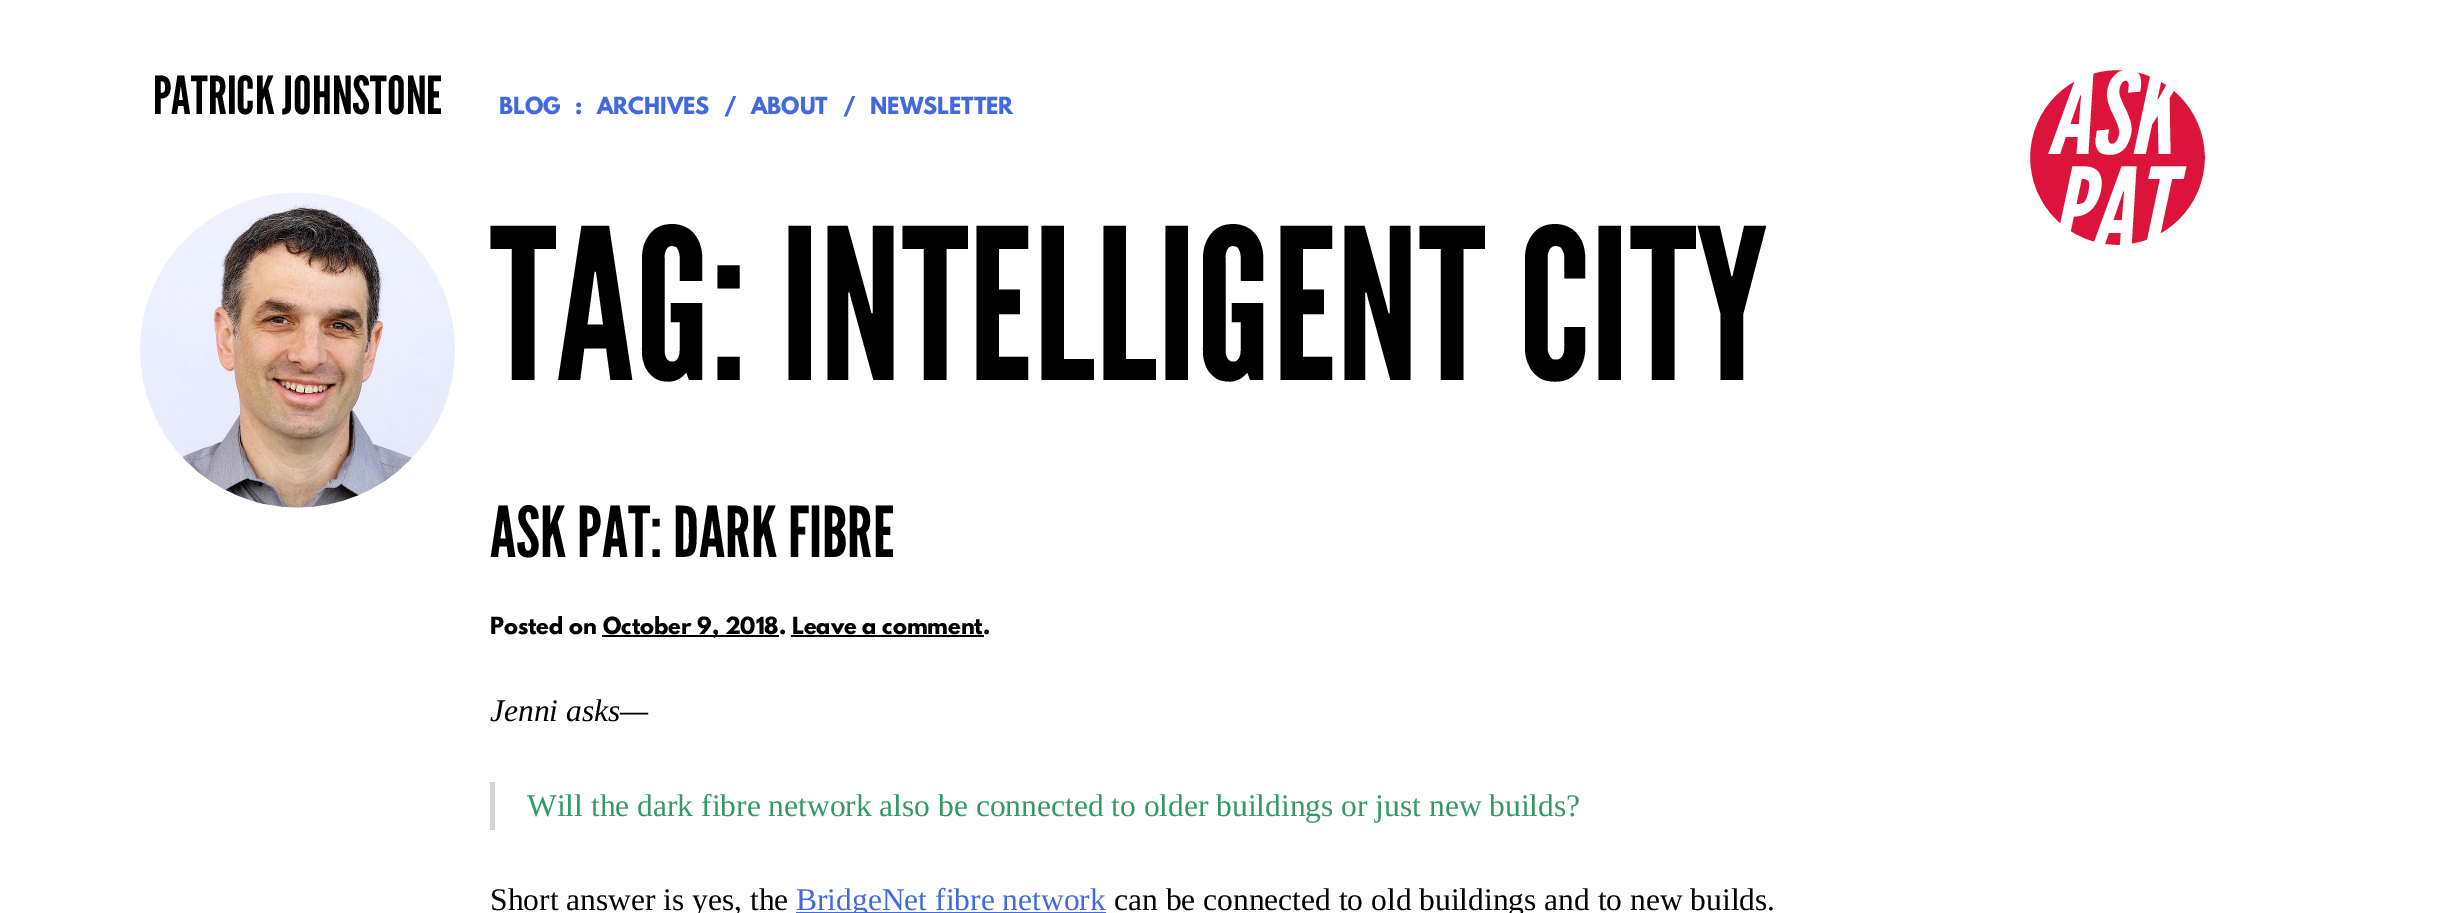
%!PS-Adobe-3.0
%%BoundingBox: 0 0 2449 913
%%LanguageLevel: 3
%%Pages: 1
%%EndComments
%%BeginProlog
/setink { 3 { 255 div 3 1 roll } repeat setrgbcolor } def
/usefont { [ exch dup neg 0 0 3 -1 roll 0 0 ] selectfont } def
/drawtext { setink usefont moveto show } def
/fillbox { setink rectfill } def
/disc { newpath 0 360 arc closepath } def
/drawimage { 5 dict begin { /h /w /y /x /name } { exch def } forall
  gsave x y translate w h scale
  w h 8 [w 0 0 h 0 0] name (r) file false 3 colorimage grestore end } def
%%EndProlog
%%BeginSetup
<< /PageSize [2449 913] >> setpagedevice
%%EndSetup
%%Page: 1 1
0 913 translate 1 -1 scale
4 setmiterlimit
0 0 2449 913 255 255 255 fillbox
(PATRICK JOHNSTONE) 153 114 /LeagueGothic-Regular 52.5 0 0 0 drawtext
(BLOG) 499 114 /LeagueSpartan-Bold 21 65 105 225 drawtext
(:) 575 114 /LeagueSpartan-Bold 21 65 105 225 drawtext
(ARCHIVES) 597 114 /LeagueSpartan-Bold 21 65 105 225 drawtext
(/) 724 114 /LeagueSpartan-Bold 21 65 105 225 drawtext
(ABOUT) 751 114 /LeagueSpartan-Bold 21 65 105 225 drawtext
(/) 843 114 /LeagueSpartan-Bold 21 65 105 225 drawtext
(NEWSLETTER) 870 114 /LeagueSpartan-Bold 21 65 105 225 drawtext
(assets/img1.rgb) 140 192 315 316 drawimage
(TAG: INTELLIGENT CITY) 490 380 /LeagueGothic-Regular 210 0 0 0 drawtext
(ASK PAT: DARK FIBRE) 490 557 /LeagueGothic-Regular 70 0 0 0 drawtext
(Posted on) 490 634 /LeagueSpartan-Bold 21 0 0 0 drawtext
602 635 177 2 0 0 0 fillbox
(October 9, 2018. Leave a comment.) 603 634 /LeagueSpartan-Bold 21 0 0 0 drawtext
791 635 193 2 0 0 0 fillbox
(Jenni asks—) 490 721 /LiberationSerif-Italic 31.5 0 0 0 drawtext
490 782 5 48 211 211 211 fillbox
(Will the dark fibre network also be connected to older buildings or just new builds?) 527 816 /LiberationSerif-Regular 31.5 51 153 102 drawtext
(Short answer is yes, the) 490 910 /LiberationSerif-Regular 31.5 0 0 0 drawtext
796 912 310 1 65 105 225 fillbox
(BridgeNet fibre network) 796 910 /LiberationSerif-Regular 31.5 65 105 225 drawtext
(can be connected to old buildings and to new builds.) 1114 910 /LiberationSerif-Regular 31.5 0 0 0 drawtext
220 20 60 setink
2117.5 157.5 105 disc gsave fill grestore
255 255 255 setink
35 setlinewidth
stroke
(ASK) 2047 154 /LeagueGothic-Italic 114 255 255 255 drawtext
(PAT) 2050 250 /LeagueGothic-Italic 114 255 255 255 drawtext
showpage
%%EOF
